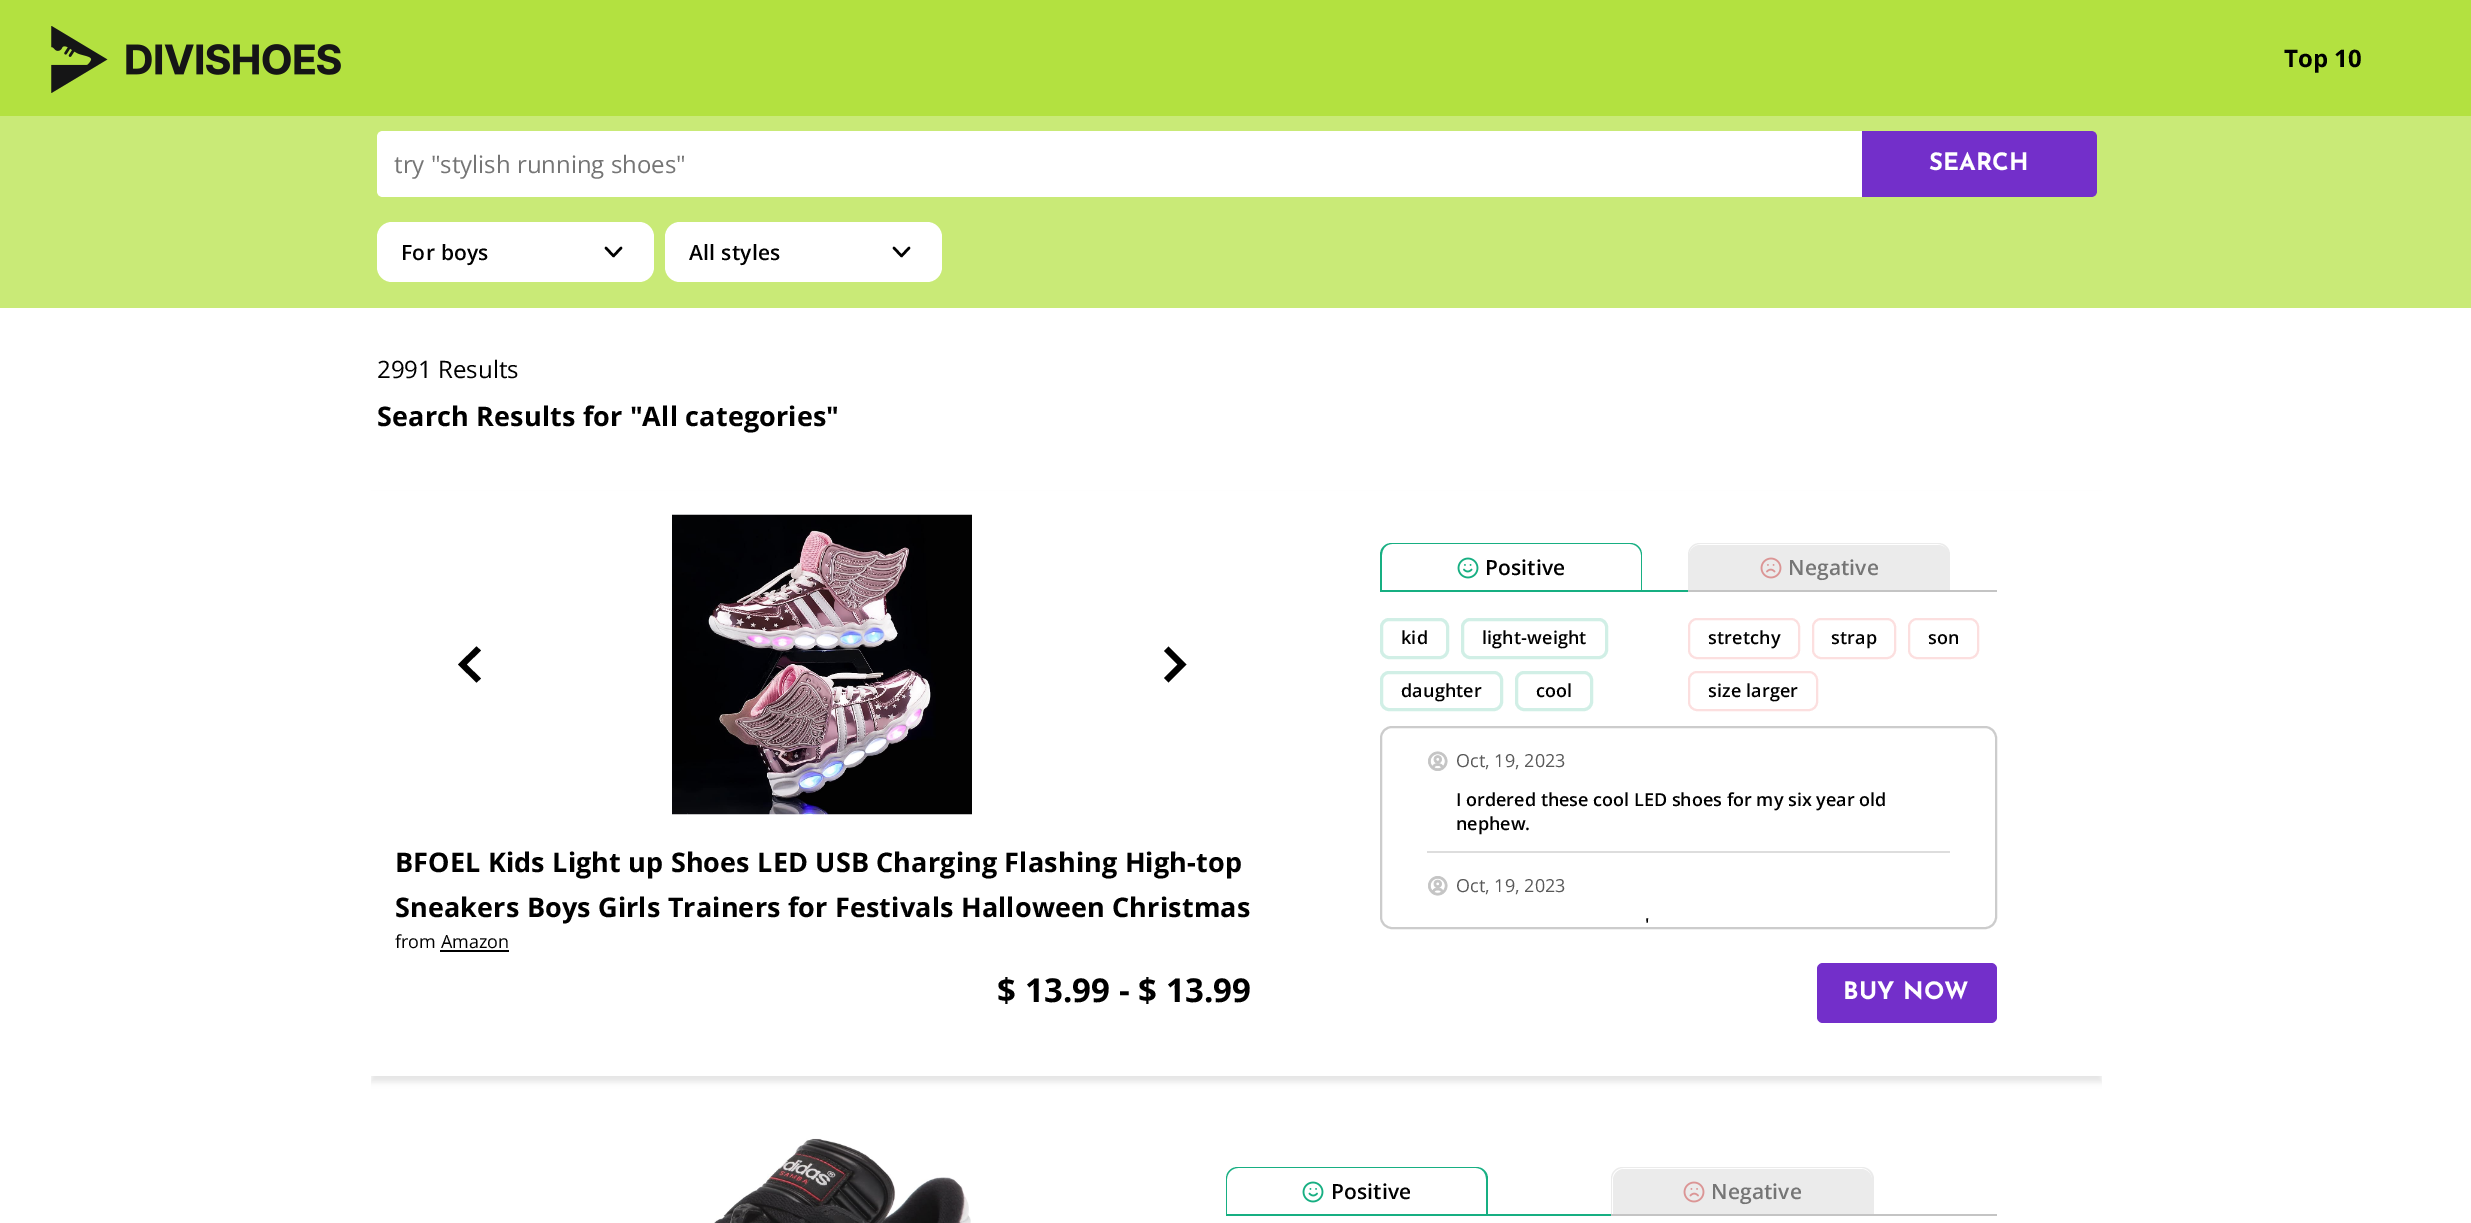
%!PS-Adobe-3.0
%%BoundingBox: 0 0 2471 1223
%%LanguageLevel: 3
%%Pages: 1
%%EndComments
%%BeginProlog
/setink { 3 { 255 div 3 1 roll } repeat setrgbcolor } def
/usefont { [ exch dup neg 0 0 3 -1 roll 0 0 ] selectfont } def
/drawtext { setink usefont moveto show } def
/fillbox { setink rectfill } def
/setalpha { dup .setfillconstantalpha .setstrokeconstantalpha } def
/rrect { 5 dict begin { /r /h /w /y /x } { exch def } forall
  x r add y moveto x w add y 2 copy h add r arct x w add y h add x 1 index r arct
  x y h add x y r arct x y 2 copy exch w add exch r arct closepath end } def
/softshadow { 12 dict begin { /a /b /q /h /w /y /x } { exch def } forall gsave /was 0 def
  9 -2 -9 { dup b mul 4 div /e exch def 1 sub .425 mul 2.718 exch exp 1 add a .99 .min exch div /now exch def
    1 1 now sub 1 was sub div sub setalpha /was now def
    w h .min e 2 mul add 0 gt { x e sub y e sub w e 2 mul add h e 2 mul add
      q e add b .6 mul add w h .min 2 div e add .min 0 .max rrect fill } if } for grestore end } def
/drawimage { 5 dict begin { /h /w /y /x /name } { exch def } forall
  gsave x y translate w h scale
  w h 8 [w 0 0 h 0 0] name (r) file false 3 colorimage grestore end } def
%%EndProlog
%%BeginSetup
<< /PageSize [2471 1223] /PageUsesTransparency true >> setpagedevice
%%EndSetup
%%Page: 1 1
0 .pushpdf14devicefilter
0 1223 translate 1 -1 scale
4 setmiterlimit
0 0 2471 1223 255 255 255 fillbox
0 0 2471 116 179 225 64 fillbox
(assets/img1.rgb) 51 26 290 67 drawimage
(Top 10) 2284 67 /OpenSans-Bold 24 0 0 0 drawtext
0 116 2471 192 201 234 119 fillbox
255 255 255 setink
383 131 moveto 1862 131 lineto 1862 197 lineto 383 197 lineto 379.5 197 377 194.5 377 191 curveto 377 137 lineto 377 133.5 379.5 131 383 131 curveto closepath fill
(try "stylish running shoes") 394 173 /OpenSans-Regular 24 117 117 117 drawtext
115 47 202 setink
1862 131 moveto 2091 131 lineto 2094.5 131 2097 133.5 2097 137 curveto 2097 191 lineto 2097 194.5 2094.5 197 2091 197 curveto 1862 197 lineto closepath fill
(SEARCH) 1929 170 /JosefinSans-Bold 24 255 255 255 drawtext
377 222 277 60 15 rrect fill
/OpenSans-SemiBold 21 usefont
0 0 0 setink
401 260 moveto 0.25 0 (For boys) ashow
2.5 setlinewidth
1 setlinecap
1 setlinejoin
606 248 moveto 613.5 256 lineto 621 248 lineto stroke
255 255 255 setink
665 222 277 60 15 rrect fill
0 0 0 setink
689 260 moveto 0.25 0 (All styles) ashow
894 248 moveto 901.5 256 lineto 909 248 lineto stroke
(2991 Results) 377 378 /OpenSans-Regular 24 0 0 0 drawtext
/OpenSans-Bold 27 usefont
377 426 moveto 0.15 0 (Search Results for "All categories") ashow
gsave
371 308 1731 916 rectclip
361 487 moveto 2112 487 lineto 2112 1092 lineto 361 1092 lineto closepath 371 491 moveto 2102 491 lineto 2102 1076 lineto 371 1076 lineto closepath eoclip newpath
371 497 1731 585 0 3 0.1 softshadow
grestore
476.5 646.5 moveto 481 650.5 lineto 466.5 664.5 lineto 481 678.5 lineto 476.5 682.5 lineto 458 664.5 lineto closepath fill
(assets/img2.rgb) 672 514 300 301 drawimage
1164 651 moveto 1168.5 646.5 lineto 1186.5 664.5 lineto 1168.5 682.5 lineto 1164 678 lineto 1177.5 664.5 lineto closepath fill
395 872 moveto 0.15 0 (BFOEL Kids Light up Shoes LED USB Charging Flashing High-top) ashow
395 917 moveto 0.15 0 (Sneakers Boys Girls Trainers for Festivals Halloween Christmas) ashow
(from Amazon) 395 948 /OpenSans-Regular 18 0 0 0 drawtext
440 950 69 2 0 0 0 fillbox
/OpenSans-Bold 33 usefont
997 1002 moveto 0.1 0 ($ 13.99 - $ 13.99) ashow
1380 590 308 2 23 175 130 fillbox
1392 543 moveto 1630 543 lineto 1637 543 1642 548 1642 555 curveto 1642 590 lineto 1380 590 lineto 1380 555 lineto 1380 548 1385 543 1392 543 curveto closepath 1392 544 moveto 1630 544 lineto 1636 544 1641 549 1641 555 curveto 1641 590 lineto 1382 590 lineto 1382 555 lineto 1382 549 1386 544 1392 544 curveto closepath eofill
(assets/img3.rgb) 1457 557 22 22 drawimage
/OpenSans-SemiBold 21 usefont
0 0 0 setink
1485 575 moveto 0.15 0 (Positive) ashow
1688 590 309 2 196 196 196 fillbox
235 235 235 setink
1700 545 moveto 1938 545 lineto 1944 545 1949 550 1949 556 curveto 1949 590 lineto 1689 590 lineto 1689 556 lineto 1689 550 1694 545 1700 545 curveto closepath fill
1700 543 moveto 1938 543 lineto 1945 543 1950 548 1950 555 curveto 1950 590 lineto 1688 590 lineto 1688 555 lineto 1688 548 1693 543 1700 543 curveto closepath 1700 544 moveto 1938 544 lineto 1944 544 1948 549 1948 555 curveto 1948 590 lineto 1689 590 lineto 1689 555 lineto 1689 549 1694 544 1700 544 curveto closepath eofill
(assets/img4.rgb) 1760 557 22 22 drawimage
117 117 117 setink
1788 575 moveto 0.15 0 (Negative) ashow
209 239 230 setink
3 setlinewidth
0 setlinecap
0 setlinejoin
1381.5 619.5 66 38 7.5 rrect stroke
/OpenSans-SemiBold 18 usefont
0 0 0 setink
1401 644 moveto 0.15 0 (kid) ashow
209 239 230 setink
1462.5 619.5 144 38 7.5 rrect stroke
0 0 0 setink
1482 644 moveto 0.15 0 (light-weight) ashow
209 239 230 setink
1381.5 672.5 120 37 7.5 rrect stroke
0 0 0 setink
1401 697 moveto 0.15 0 (daughter) ashow
209 239 230 setink
1516.5 672.5 75 37 7.5 rrect stroke
0 0 0 setink
1536 697 moveto 0.15 0 (cool) ashow
252 223 223 setink
2 setlinewidth
1689 619 110 39 8 rrect stroke
0 0 0 setink
1708 644 moveto 0.15 0 (stretchy) ashow
252 223 223 setink
1813 619 82 39 8 rrect stroke
0 0 0 setink
1831 644 moveto 0.15 0 (strap) ashow
252 223 223 setink
1909 619 69 39 8 rrect stroke
0 0 0 setink
1928 644 moveto 0.15 0 (son) ashow
252 223 223 setink
1689 672 128 38 8 rrect stroke
0 0 0 setink
1708 697 moveto 0.15 0 (size larger) ashow
204 204 204 setink
1381 727 615 201 11 rrect stroke
1427 851 523 2 221 221 221 fillbox
(assets/img5.rgb) 1428 751 20 20 drawimage
(Oct, 19, 2023) 1456 767 /OpenSans-Regular 18 89 89 89 drawtext
(I ordered these cool LED shoes for my six year old) 1456 806 /OpenSans-SemiBold 18 0 0 0 drawtext
(nephew.) 1456 830 /OpenSans-SemiBold 18 0 0 0 drawtext
(assets/img6.rgb) 1428 876 20 20 drawimage
(Oct, 19, 2023) 1456 892 /OpenSans-Regular 18 89 89 89 drawtext
(') 1645 931 /OpenSans-SemiBold 18 0 0 0 drawtext
115 47 202 setink
1817 963 180 60 6 rrect fill
/JosefinSans-Bold 24 usefont
255 255 255 setink
1843 999 moveto 0.25 0 (BUY NOW) ashow
(assets/img7.rgb) 714 1138 257 85 drawimage
1226 1214 385 2 23 175 130 fillbox
1238 1167 moveto 1476 1167 lineto 1483 1167 1488 1172 1488 1179 curveto 1488 1214 lineto 1226 1214 lineto 1226 1179 lineto 1226 1172 1231 1167 1238 1167 curveto closepath 1238 1168 moveto 1476 1168 lineto 1482 1168 1486 1173 1486 1179 curveto 1486 1214 lineto 1227 1214 lineto 1227 1179 lineto 1227 1173 1232 1168 1238 1168 curveto closepath eofill
(assets/img8.rgb) 1302 1181 22 22 drawimage
/OpenSans-SemiBold 21 usefont
0 0 0 setink
1331 1199 moveto 0.15 0 (Positive) ashow
1611 1214 386 2 196 196 196 fillbox
235 235 235 setink
1624 1169 moveto 1861 1169 lineto 1867 1169 1872 1174 1872 1180 curveto 1872 1214 lineto 1613 1214 lineto 1613 1180 lineto 1613 1174 1618 1169 1624 1169 curveto closepath fill
1623 1167 moveto 1862 1167 lineto 1868 1167 1874 1172 1874 1179 curveto 1874 1214 lineto 1611 1214 lineto 1611 1179 lineto 1611 1172 1616 1167 1623 1167 curveto closepath 1623 1168 moveto 1862 1168 lineto 1867 1168 1872 1173 1872 1179 curveto 1872 1214 lineto 1612 1214 lineto 1612 1179 lineto 1612 1173 1617 1168 1623 1168 curveto closepath eofill
(assets/img9.rgb) 1683 1181 22 22 drawimage
117 117 117 setink
1711 1199 moveto 0.15 0 (Negative) ashow
.poppdf14devicefilter showpage
%%EOF
